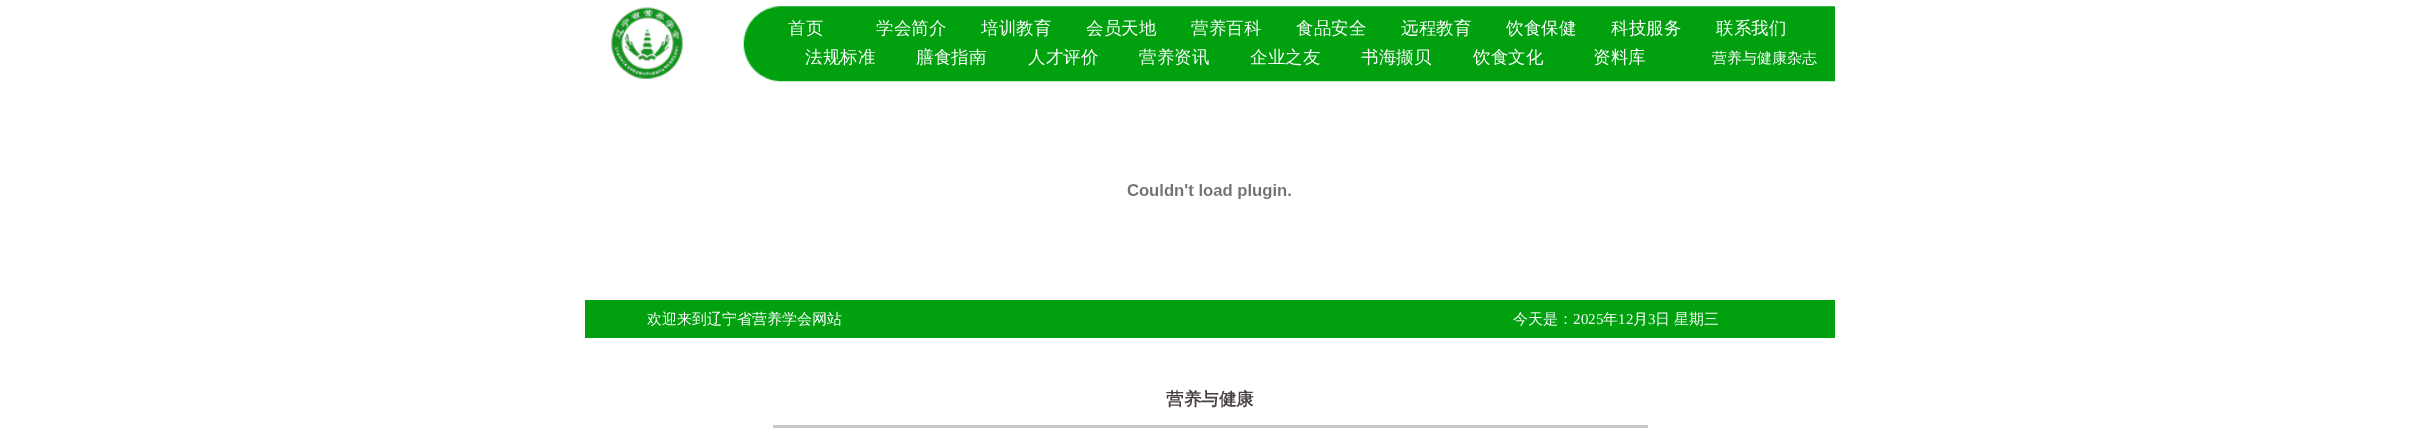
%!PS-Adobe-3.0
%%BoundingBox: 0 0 2418 430
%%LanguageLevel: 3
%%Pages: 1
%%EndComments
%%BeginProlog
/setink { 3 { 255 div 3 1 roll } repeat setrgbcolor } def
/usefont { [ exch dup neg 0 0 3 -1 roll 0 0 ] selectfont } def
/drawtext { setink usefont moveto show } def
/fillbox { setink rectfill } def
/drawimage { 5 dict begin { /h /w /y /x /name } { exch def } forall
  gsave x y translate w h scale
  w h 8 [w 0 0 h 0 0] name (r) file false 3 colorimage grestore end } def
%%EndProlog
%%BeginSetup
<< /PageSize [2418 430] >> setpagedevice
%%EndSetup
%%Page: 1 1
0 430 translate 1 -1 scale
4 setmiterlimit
0 0 2418 430 255 255 255 fillbox
(assets/img1.rgb) 743 6 1092 76 drawimage
(assets/img2.rgb) 611 7 72 72 drawimage
(首页) 788 34 /WenQuanYiZenHei-Medium 17.5 255 255 255 drawtext
(学会简介) 876 34 /WenQuanYiZenHei-Medium 17.5 255 255 255 drawtext
(培训教育) 981 34 /WenQuanYiZenHei-Medium 17.5 255 255 255 drawtext
(会员天地) 1086 34 /WenQuanYiZenHei-Medium 17.5 255 255 255 drawtext
(营养百科) 1191 34 /WenQuanYiZenHei-Medium 17.5 255 255 255 drawtext
(食品安全) 1296 34 /WenQuanYiZenHei-Medium 17.5 255 255 255 drawtext
(远程教育) 1401 34 /WenQuanYiZenHei-Medium 17.5 255 255 255 drawtext
(饮食保健) 1506 34 /WenQuanYiZenHei-Medium 17.5 255 255 255 drawtext
(科技服务) 1611 34 /WenQuanYiZenHei-Medium 17.5 255 255 255 drawtext
(联系我们) 1716 34 /WenQuanYiZenHei-Medium 17.5 255 255 255 drawtext
(法规标准) 805 63 /WenQuanYiZenHei-Medium 17.5 255 255 255 drawtext
(膳食指南) 916 63 /WenQuanYiZenHei-Medium 17.5 255 255 255 drawtext
(人才评价) 1028 63 /WenQuanYiZenHei-Medium 17.5 255 255 255 drawtext
(营养资讯) 1139 63 /WenQuanYiZenHei-Medium 17.5 255 255 255 drawtext
(企业之友) 1250 63 /WenQuanYiZenHei-Medium 17.5 255 255 255 drawtext
(书海撷贝) 1361 63 /WenQuanYiZenHei-Medium 17.5 255 255 255 drawtext
(饮食文化) 1473 63 /WenQuanYiZenHei-Medium 17.5 255 255 255 drawtext
(资料库) 1593 63 /WenQuanYiZenHei-Medium 17.5 255 255 255 drawtext
(营养与健康杂志) 1712 63 /WenQuanYiZenHei-Medium 15 255 255 255 drawtext
(assets/img3.rgb) 1127 184 164 15 drawimage
585 300 1250 38 0 160 15 fillbox
(欢迎来到辽宁省营养学会网站) 647 324 /WenQuanYiZenHei-Medium 15 255 255 255 drawtext
(今天是：) 1513 324 /WenQuanYiZenHei-Medium 15 255 255 255 drawtext
(2025) 1573 324 /LiberationSerif-Regular 15 255 255 255 drawtext
(年) 1603 324 /WenQuanYiZenHei-Medium 15 255 255 255 drawtext
(12) 1618 324 /LiberationSerif-Regular 15 255 255 255 drawtext
(月) 1633 324 /WenQuanYiZenHei-Medium 15 255 255 255 drawtext
(3) 1648 324 /LiberationSerif-Regular 15 255 255 255 drawtext
(日) 1655 324 /WenQuanYiZenHei-Medium 15 255 255 255 drawtext
(星期三) 1674 324 /WenQuanYiZenHei-Medium 15 255 255 255 drawtext
773 425 875 3 198 200 199 fillbox
(营养与健康) 1166 405 /WenQuanYiZenHei-Bold 17.5 74 66 66 drawtext
showpage
%%EOF
